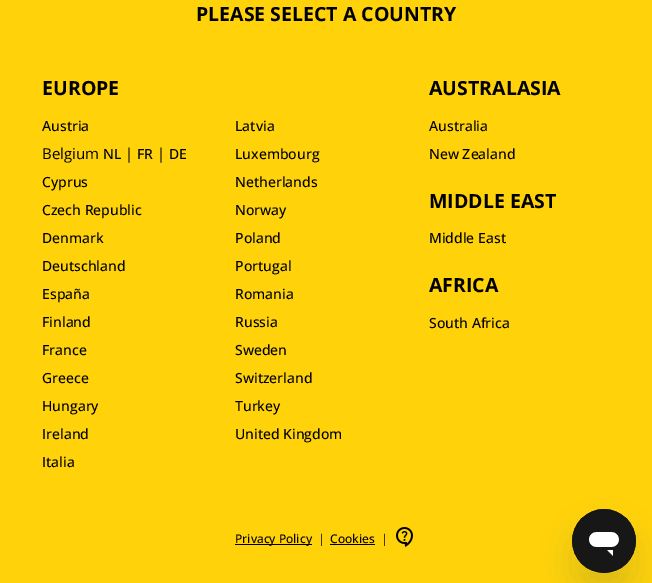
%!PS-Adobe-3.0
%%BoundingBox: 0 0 652 583
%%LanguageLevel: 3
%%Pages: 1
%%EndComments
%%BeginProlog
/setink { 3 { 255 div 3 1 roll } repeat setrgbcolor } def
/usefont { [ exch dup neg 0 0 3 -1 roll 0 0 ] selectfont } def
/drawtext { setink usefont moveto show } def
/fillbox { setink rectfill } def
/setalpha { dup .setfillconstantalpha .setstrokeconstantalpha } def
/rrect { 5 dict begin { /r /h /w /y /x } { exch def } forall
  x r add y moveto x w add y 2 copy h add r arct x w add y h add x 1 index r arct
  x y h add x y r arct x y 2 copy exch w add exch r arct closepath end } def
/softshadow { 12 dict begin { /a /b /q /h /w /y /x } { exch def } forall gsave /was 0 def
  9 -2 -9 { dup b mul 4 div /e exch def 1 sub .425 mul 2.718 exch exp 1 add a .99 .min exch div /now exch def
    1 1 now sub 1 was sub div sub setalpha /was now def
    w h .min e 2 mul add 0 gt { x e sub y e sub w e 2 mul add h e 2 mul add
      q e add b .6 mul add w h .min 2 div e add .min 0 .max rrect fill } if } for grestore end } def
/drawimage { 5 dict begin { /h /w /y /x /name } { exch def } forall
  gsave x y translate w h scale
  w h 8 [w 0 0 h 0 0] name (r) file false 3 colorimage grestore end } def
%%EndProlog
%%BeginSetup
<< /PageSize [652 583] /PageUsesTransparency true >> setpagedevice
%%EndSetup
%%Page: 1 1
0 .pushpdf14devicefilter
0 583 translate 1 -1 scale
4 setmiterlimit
0 0 652 583 255 210 10 fillbox
(PLEASE SELECT A COUNTRY) 196 21 /OpenSans-Bold 19.5 0 0 0 drawtext
(EUROPE) 42 95 /OpenSans-Bold 19.5 0 0 0 drawtext
(Austria) 42 131 /OpenSans-Medium 14 0 0 0 drawtext
(Belgium) 42 159 /OpenSans-Regular 15 0 0 0 drawtext
(NL) 103 159 /OpenSans-Medium 14 0 0 0 drawtext
(|) 125 159 /OpenSans-Regular 15 0 0 0 drawtext
(FR) 137 159 /OpenSans-Medium 14 0 0 0 drawtext
(|) 157 159 /OpenSans-Regular 15 0 0 0 drawtext
(DE) 169 159 /OpenSans-Medium 14 0 0 0 drawtext
(Cyprus) 42 187 /OpenSans-Medium 14 0 0 0 drawtext
(Czech Republic) 42 215 /OpenSans-Medium 14 0 0 0 drawtext
(Denmark) 42 243 /OpenSans-Medium 14 0 0 0 drawtext
(Deutschland) 42 271 /OpenSans-Medium 14 0 0 0 drawtext
(España) 42 299 /OpenSans-Medium 14 0 0 0 drawtext
(Finland) 42 327 /OpenSans-Medium 14 0 0 0 drawtext
(France) 42 355 /OpenSans-Medium 14 0 0 0 drawtext
(Greece) 42 383 /OpenSans-Medium 14 0 0 0 drawtext
(Hungary) 42 411 /OpenSans-Medium 14 0 0 0 drawtext
(Ireland) 42 439 /OpenSans-Medium 14 0 0 0 drawtext
(Italia) 42 467 /OpenSans-Medium 14 0 0 0 drawtext
(Latvia) 235 131 /OpenSans-Medium 14 0 0 0 drawtext
(Luxembourg) 235 159 /OpenSans-Medium 14 0 0 0 drawtext
(Netherlands) 235 187 /OpenSans-Medium 14 0 0 0 drawtext
(Norway) 235 215 /OpenSans-Medium 14 0 0 0 drawtext
(Poland) 235 243 /OpenSans-Medium 14 0 0 0 drawtext
(Portugal) 235 271 /OpenSans-Medium 14 0 0 0 drawtext
(Romania) 235 299 /OpenSans-Medium 14 0 0 0 drawtext
(Russia) 235 327 /OpenSans-Medium 14 0 0 0 drawtext
(Sweden) 235 355 /OpenSans-Medium 14 0 0 0 drawtext
(Switzerland) 235 383 /OpenSans-Medium 14 0 0 0 drawtext
(Turkey) 235 411 /OpenSans-Medium 14 0 0 0 drawtext
(United Kingdom) 235 439 /OpenSans-Medium 14 0 0 0 drawtext
(AUSTRALASIA) 429 95 /OpenSans-Bold 19.5 0 0 0 drawtext
(Australia) 429 131 /OpenSans-Medium 14 0 0 0 drawtext
(New Zealand) 429 159 /OpenSans-Medium 14 0 0 0 drawtext
(MIDDLE EAST) 429 208 /OpenSans-Bold 19.5 0 0 0 drawtext
(Middle East) 429 243 /OpenSans-Medium 14 0 0 0 drawtext
(AFRICA) 429 292 /OpenSans-Bold 19.5 0 0 0 drawtext
(South Africa) 429 328 /OpenSans-Medium 14 0 0 0 drawtext
235 544 77 1 0 0 0 fillbox
(Privacy Policy) 235 543 /OpenSans-Medium 12 0 0 0 drawtext
(|) 318 543 /OpenSans-Regular 12 0 0 0 drawtext
(Cookies) 330 543 /OpenSans-Medium 12 0 0 0 drawtext
330 544 45 1 0 0 0 fillbox
(|) 381 543 /OpenSans-Regular 12 0 0 0 drawtext
(assets/img1.rgb) 396 527 17 20 drawimage
23 73 77 setink
572 529 64 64 32 15 0.15 softshadow
(assets/img2.rgb) 572 509 64 64 drawimage
.poppdf14devicefilter showpage
%%EOF
